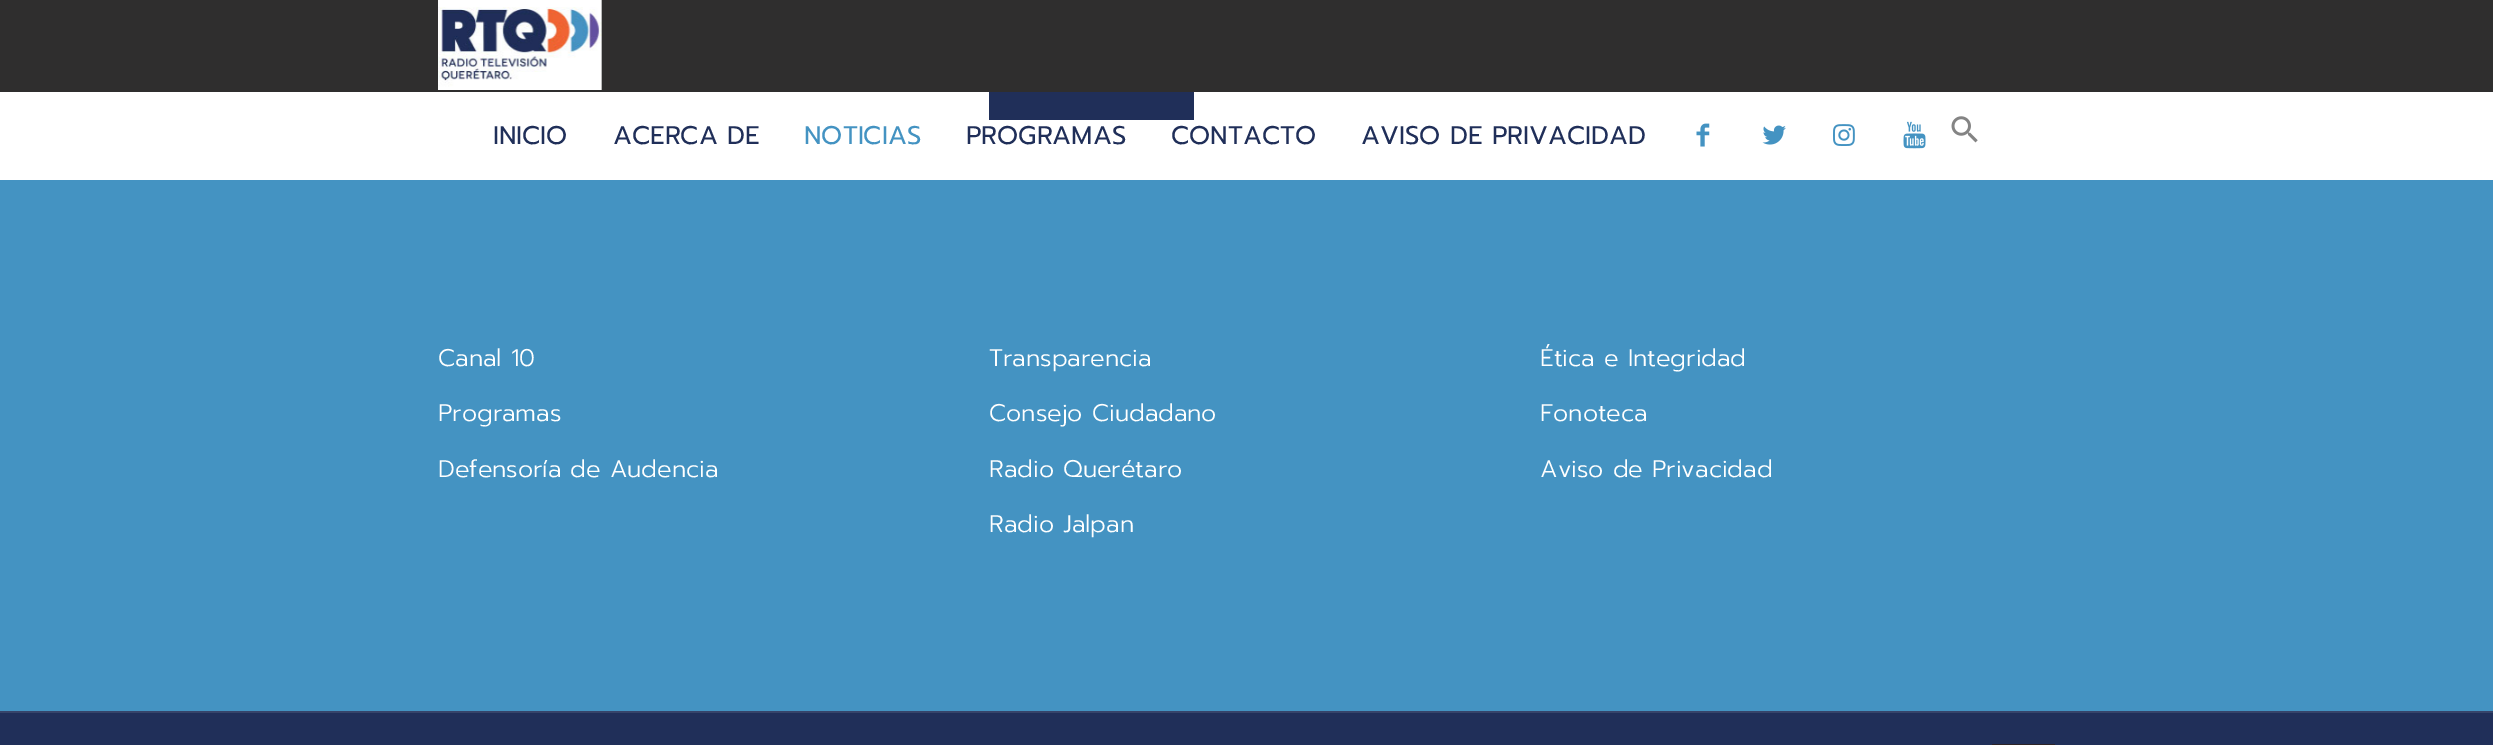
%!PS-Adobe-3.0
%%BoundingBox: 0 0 2493 745
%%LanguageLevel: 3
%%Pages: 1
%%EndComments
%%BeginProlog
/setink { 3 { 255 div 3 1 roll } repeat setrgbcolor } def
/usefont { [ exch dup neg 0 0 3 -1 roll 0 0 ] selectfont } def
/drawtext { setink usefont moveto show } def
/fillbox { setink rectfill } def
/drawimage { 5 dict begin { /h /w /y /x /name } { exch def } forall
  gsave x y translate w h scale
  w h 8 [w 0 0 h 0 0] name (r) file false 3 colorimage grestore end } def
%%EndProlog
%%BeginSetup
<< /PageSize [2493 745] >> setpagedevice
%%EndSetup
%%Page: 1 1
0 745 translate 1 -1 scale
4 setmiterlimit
0 0 2493 745 255 255 255 fillbox
989 92 205 28 32 47 89 fillbox
0 0 2493 92 47 46 46 fillbox
(assets/img1.rgb) 438 0 164 90 drawimage
(INICIO) 493 144 /Prompt-Regular 25.5 32 47 89 drawtext
(ACERCA DE) 613 144 /Prompt-Regular 25.5 32 47 89 drawtext
(NOTICIAS) 804 144 /Prompt-Regular 25.5 68 147 194 drawtext
(PROGRAMAS) 966 144 /Prompt-Regular 25.5 32 47 89 drawtext
(CONTACTO) 1171 144 /Prompt-Regular 25.5 32 47 89 drawtext
(AVISO DE PRIVACIDAD) 1361 144 /Prompt-Regular 25.5 32 47 89 drawtext
(assets/img2.rgb) 1696 123 14 24 drawimage
(assets/img3.rgb) 1762 125 24 20 drawimage
(assets/img4.rgb) 1833 124 22 22 drawimage
(assets/img5.rgb) 1903 121 23 28 drawimage
(assets/img6.rgb) 1951 116 27 27 drawimage
0 180 2493 531 68 147 194 fillbox
(Canal 10) 438 366 /Prompt-Light 24 255 255 255 drawtext
(Programas) 438 421 /Prompt-Light 24 255 255 255 drawtext
(Defensoría de Audencia) 438 477 /Prompt-Light 24 255 255 255 drawtext
(Transparencia) 989 366 /Prompt-Light 24 255 255 255 drawtext
(Consejo Ciudadano) 989 421 /Prompt-Light 24 255 255 255 drawtext
(Radio Querétaro) 989 477 /Prompt-Light 24 255 255 255 drawtext
(Radio Jalpan) 989 532 /Prompt-Light 24 255 255 255 drawtext
(Ética e Integridad) 1540 366 /Prompt-Light 24 255 255 255 drawtext
(Fonoteca) 1540 421 /Prompt-Light 24 255 255 255 drawtext
(Aviso de Privacidad) 1540 477 /Prompt-Light 24 255 255 255 drawtext
0 713 2493 32 32 47 89 fillbox
0 711 2493 2 54 68 106 fillbox
1992 744 63 1 46 36 39 fillbox
showpage
%%EOF
